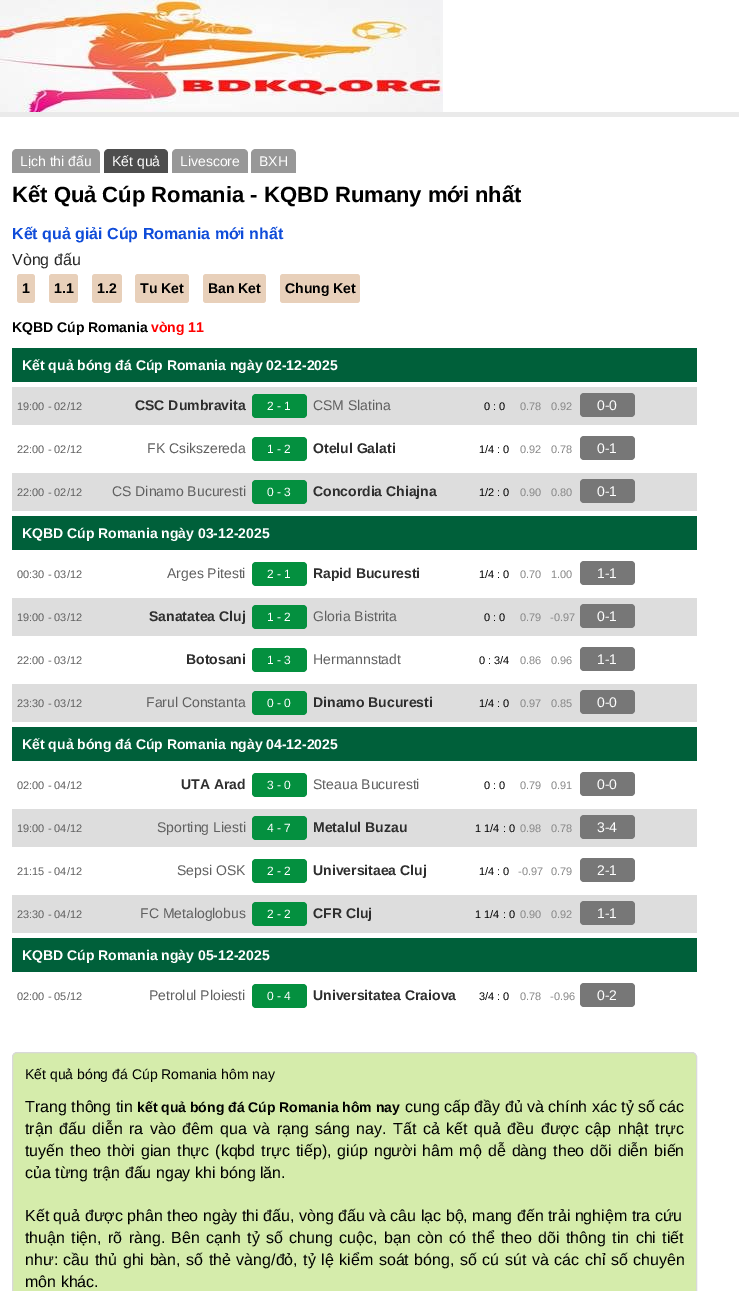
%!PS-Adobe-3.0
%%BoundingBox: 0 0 739 1291
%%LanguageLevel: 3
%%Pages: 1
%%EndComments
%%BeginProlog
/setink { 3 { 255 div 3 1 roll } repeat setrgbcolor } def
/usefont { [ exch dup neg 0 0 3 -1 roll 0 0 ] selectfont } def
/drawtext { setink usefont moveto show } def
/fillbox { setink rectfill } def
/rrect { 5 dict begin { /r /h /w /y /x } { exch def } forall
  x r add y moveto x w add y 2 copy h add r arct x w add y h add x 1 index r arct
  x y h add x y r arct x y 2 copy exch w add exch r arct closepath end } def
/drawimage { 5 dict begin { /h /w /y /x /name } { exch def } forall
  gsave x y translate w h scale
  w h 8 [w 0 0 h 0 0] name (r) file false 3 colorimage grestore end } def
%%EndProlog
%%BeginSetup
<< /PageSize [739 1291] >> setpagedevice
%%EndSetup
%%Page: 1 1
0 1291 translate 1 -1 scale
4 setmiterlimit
0 0 739 1291 234 234 234 fillbox
443 0 296 112 255 255 255 fillbox
(assets/img1.rgb) 0 0 443 112 drawimage
0 117 739 1174 255 255 255 fillbox
152 152 152 setink
17 149 moveto 95 149 lineto 98 149 100 151 100 154 curveto 100 173 lineto 12 173 lineto 12 154 lineto 12 151 14 149 17 149 curveto closepath fill
(Lịch thi đấu) 20 166 /LiberationSans-Regular 14 255 255 255 drawtext
78 78 78 setink
109 149 moveto 163 149 lineto 166 149 168 151 168 154 curveto 168 173 lineto 104 173 lineto 104 154 lineto 104 151 106 149 109 149 curveto closepath fill
(Kết quả) 112 166 /LiberationSans-Regular 14 255 255 255 drawtext
152 152 152 setink
177 149 moveto 243 149 lineto 246 149 248 151 248 154 curveto 248 173 lineto 172 173 lineto 172 154 lineto 172 151 174 149 177 149 curveto closepath fill
(Livescore) 180 166 /LiberationSans-Regular 14 255 255 255 drawtext
152 152 152 setink
256 149 moveto 291 149 lineto 294 149 296 151 296 154 curveto 296 173 lineto 251 173 lineto 251 154 lineto 251 151 253 149 256 149 curveto closepath fill
(BXH) 259 166 /LiberationSans-Regular 14 255 255 255 drawtext
(Kết Quả Cúp Romania - KQBD Rumany mới nhất) 12 202 /LiberationSans-Bold 22 0 0 0 drawtext
(Kết quả giải Cúp Romania mới nhất) 12 239 /LiberationSans-Bold 16 15 76 217 drawtext
(Vòng đấu) 12 265 /LiberationSans-Regular 16 39 39 39 drawtext
232 208 186 setink
17 274 18 29 3 rrect fill
(1) 22 293 /LiberationSans-Bold 14 0 0 0 drawtext
232 208 186 setink
49 274 29 29 3 rrect fill
(1.1) 54 293 /LiberationSans-Bold 14 0 0 0 drawtext
232 208 186 setink
92 274 30 29 3 rrect fill
(1.2) 97 293 /LiberationSans-Bold 14 0 0 0 drawtext
232 208 186 setink
135 274 54 29 3 rrect fill
(Tu Ket) 140 293 /LiberationSans-Bold 14 0 0 0 drawtext
232 208 186 setink
203 274 63 29 3 rrect fill
(Ban Ket) 208 293 /LiberationSans-Bold 14 0 0 0 drawtext
232 208 186 setink
280 274 80 29 3 rrect fill
(Chung Ket) 285 293 /LiberationSans-Bold 14 0 0 0 drawtext
(KQBD Cúp Romania) 12 332 /LiberationSans-Bold 14 0 0 0 drawtext
(vòng 11) 151 332 /LiberationSans-Bold 14 255 0 0 drawtext
12 348 685 34 0 96 58 fillbox
(Kết quả bóng đá Cúp Romania ngày 02-12-2025) 22 370 /LiberationSans-Bold 14 255 255 255 drawtext
12 387 685 38 221 221 221 fillbox
(19:00 - 02/12) 17 410 /LiberationSans-Regular 11 96 96 96 drawtext
(CSC Dumbravita) 135 410 /LiberationSans-Bold 14 46 46 46 drawtext
4 144 63 setink
252 394 55 24 4 rrect fill
(2 - 1) 267 410 /LiberationSans-Regular 12 255 255 255 drawtext
(CSM Slatina) 313 410 /LiberationSans-Regular 14 96 96 96 drawtext
(0 : 0) 484 410 /LiberationSans-Regular 11 0 0 0 drawtext
(0.78) 520 410 /LiberationSans-Regular 11 136 136 136 drawtext
(0.92) 551 410 /LiberationSans-Regular 11 136 136 136 drawtext
119 119 119 setink
580 393 55 24 4 rrect fill
(0-0) 597 410 /LiberationSans-Regular 14 255 255 255 drawtext
(22:00 - 02/12) 17 453 /LiberationSans-Regular 11 96 96 96 drawtext
(FK Csikszereda) 147 453 /LiberationSans-Regular 14 96 96 96 drawtext
4 144 63 setink
252 437 55 24 4 rrect fill
(1 - 2) 267 453 /LiberationSans-Regular 12 255 255 255 drawtext
(Otelul Galati) 313 453 /LiberationSans-Bold 14 46 46 46 drawtext
(1/4 : 0) 479 453 /LiberationSans-Regular 11 0 0 0 drawtext
(0.92) 520 453 /LiberationSans-Regular 11 136 136 136 drawtext
(0.78) 551 453 /LiberationSans-Regular 11 136 136 136 drawtext
119 119 119 setink
580 436 55 24 4 rrect fill
(0-1) 597 453 /LiberationSans-Regular 14 255 255 255 drawtext
12 473 685 38 221 221 221 fillbox
(22:00 - 02/12) 17 496 /LiberationSans-Regular 11 96 96 96 drawtext
(CS Dinamo Bucuresti) 112 496 /LiberationSans-Regular 14 96 96 96 drawtext
4 144 63 setink
252 480 55 24 4 rrect fill
(0 - 3) 267 496 /LiberationSans-Regular 12 255 255 255 drawtext
(Concordia Chiajna) 313 496 /LiberationSans-Bold 14 46 46 46 drawtext
(1/2 : 0) 479 496 /LiberationSans-Regular 11 0 0 0 drawtext
(0.90) 520 496 /LiberationSans-Regular 11 136 136 136 drawtext
(0.80) 551 496 /LiberationSans-Regular 11 136 136 136 drawtext
119 119 119 setink
580 479 55 24 4 rrect fill
(0-1) 597 496 /LiberationSans-Regular 14 255 255 255 drawtext
12 516 685 34 0 96 58 fillbox
(KQBD Cúp Romania ngày 03-12-2025) 22 538 /LiberationSans-Bold 14 255 255 255 drawtext
(00:30 - 03/12) 17 578 /LiberationSans-Regular 11 96 96 96 drawtext
(Arges Pitesti) 167 578 /LiberationSans-Regular 14 96 96 96 drawtext
4 144 63 setink
252 562 55 24 4 rrect fill
(2 - 1) 267 578 /LiberationSans-Regular 12 255 255 255 drawtext
(Rapid Bucuresti) 313 578 /LiberationSans-Bold 14 46 46 46 drawtext
(1/4 : 0) 479 578 /LiberationSans-Regular 11 0 0 0 drawtext
(0.70) 520 578 /LiberationSans-Regular 11 136 136 136 drawtext
(1.00) 551 578 /LiberationSans-Regular 11 136 136 136 drawtext
119 119 119 setink
580 561 55 24 4 rrect fill
(1-1) 597 578 /LiberationSans-Regular 14 255 255 255 drawtext
12 598 685 38 221 221 221 fillbox
(19:00 - 03/12) 17 621 /LiberationSans-Regular 11 96 96 96 drawtext
(Sanatatea Cluj) 149 621 /LiberationSans-Bold 14 46 46 46 drawtext
4 144 63 setink
252 605 55 24 4 rrect fill
(1 - 2) 267 621 /LiberationSans-Regular 12 255 255 255 drawtext
(Gloria Bistrita) 313 621 /LiberationSans-Regular 14 96 96 96 drawtext
(0 : 0) 484 621 /LiberationSans-Regular 11 0 0 0 drawtext
(0.79) 520 621 /LiberationSans-Regular 11 136 136 136 drawtext
(-0.97) 550 621 /LiberationSans-Regular 11 136 136 136 drawtext
119 119 119 setink
580 604 55 24 4 rrect fill
(0-1) 597 621 /LiberationSans-Regular 14 255 255 255 drawtext
(22:00 - 03/12) 17 664 /LiberationSans-Regular 11 96 96 96 drawtext
(Botosani) 186 664 /LiberationSans-Bold 14 46 46 46 drawtext
4 144 63 setink
252 648 55 24 4 rrect fill
(1 - 3) 267 664 /LiberationSans-Regular 12 255 255 255 drawtext
(Hermannstadt) 313 664 /LiberationSans-Regular 14 96 96 96 drawtext
(0 : 3/4) 479 664 /LiberationSans-Regular 11 0 0 0 drawtext
(0.86) 520 664 /LiberationSans-Regular 11 136 136 136 drawtext
(0.96) 551 664 /LiberationSans-Regular 11 136 136 136 drawtext
119 119 119 setink
580 647 55 24 4 rrect fill
(1-1) 597 664 /LiberationSans-Regular 14 255 255 255 drawtext
12 684 685 38 221 221 221 fillbox
(23:30 - 03/12) 17 707 /LiberationSans-Regular 11 96 96 96 drawtext
(Farul Constanta) 146 707 /LiberationSans-Regular 14 96 96 96 drawtext
4 144 63 setink
252 691 55 24 4 rrect fill
(0 - 0) 267 707 /LiberationSans-Regular 12 255 255 255 drawtext
(Dinamo Bucuresti) 313 707 /LiberationSans-Bold 14 46 46 46 drawtext
(1/4 : 0) 479 707 /LiberationSans-Regular 11 0 0 0 drawtext
(0.97) 520 707 /LiberationSans-Regular 11 136 136 136 drawtext
(0.85) 551 707 /LiberationSans-Regular 11 136 136 136 drawtext
119 119 119 setink
580 690 55 24 4 rrect fill
(0-0) 597 707 /LiberationSans-Regular 14 255 255 255 drawtext
12 727 685 34 0 96 58 fillbox
(Kết quả bóng đá Cúp Romania ngày 04-12-2025) 22 749 /LiberationSans-Bold 14 255 255 255 drawtext
(02:00 - 04/12) 17 789 /LiberationSans-Regular 11 96 96 96 drawtext
(UTA Arad) 181 789 /LiberationSans-Bold 14 46 46 46 drawtext
4 144 63 setink
252 773 55 24 4 rrect fill
(3 - 0) 267 789 /LiberationSans-Regular 12 255 255 255 drawtext
(Steaua Bucuresti) 313 789 /LiberationSans-Regular 14 96 96 96 drawtext
(0 : 0) 484 789 /LiberationSans-Regular 11 0 0 0 drawtext
(0.79) 520 789 /LiberationSans-Regular 11 136 136 136 drawtext
(0.91) 551 789 /LiberationSans-Regular 11 136 136 136 drawtext
119 119 119 setink
580 772 55 24 4 rrect fill
(0-0) 597 789 /LiberationSans-Regular 14 255 255 255 drawtext
12 809 685 38 221 221 221 fillbox
(19:00 - 04/12) 17 832 /LiberationSans-Regular 11 96 96 96 drawtext
(Sporting Liesti) 157 832 /LiberationSans-Regular 14 96 96 96 drawtext
4 144 63 setink
252 816 55 24 4 rrect fill
(4 - 7) 267 832 /LiberationSans-Regular 12 255 255 255 drawtext
(Metalul Buzau) 313 832 /LiberationSans-Bold 14 46 46 46 drawtext
(1 1/4 : 0) 475 832 /LiberationSans-Regular 11 0 0 0 drawtext
(0.98) 520 832 /LiberationSans-Regular 11 136 136 136 drawtext
(0.78) 551 832 /LiberationSans-Regular 11 136 136 136 drawtext
119 119 119 setink
580 815 55 24 4 rrect fill
(3-4) 597 832 /LiberationSans-Regular 14 255 255 255 drawtext
(21:15 - 04/12) 17 875 /LiberationSans-Regular 11 96 96 96 drawtext
(Sepsi OSK) 177 875 /LiberationSans-Regular 14 96 96 96 drawtext
4 144 63 setink
252 859 55 24 4 rrect fill
(2 - 2) 267 875 /LiberationSans-Regular 12 255 255 255 drawtext
(Universitaea Cluj) 313 875 /LiberationSans-Bold 14 46 46 46 drawtext
(1/4 : 0) 479 875 /LiberationSans-Regular 11 0 0 0 drawtext
(-0.97) 518 875 /LiberationSans-Regular 11 136 136 136 drawtext
(0.79) 551 875 /LiberationSans-Regular 11 136 136 136 drawtext
119 119 119 setink
580 858 55 24 4 rrect fill
(2-1) 597 875 /LiberationSans-Regular 14 255 255 255 drawtext
12 895 685 38 221 221 221 fillbox
(23:30 - 04/12) 17 918 /LiberationSans-Regular 11 96 96 96 drawtext
(FC Metaloglobus) 140 918 /LiberationSans-Regular 14 96 96 96 drawtext
4 144 63 setink
252 902 55 24 4 rrect fill
(2 - 2) 267 918 /LiberationSans-Regular 12 255 255 255 drawtext
(CFR Cluj) 313 918 /LiberationSans-Bold 14 46 46 46 drawtext
(1 1/4 : 0) 475 918 /LiberationSans-Regular 11 0 0 0 drawtext
(0.90) 520 918 /LiberationSans-Regular 11 136 136 136 drawtext
(0.92) 551 918 /LiberationSans-Regular 11 136 136 136 drawtext
119 119 119 setink
580 901 55 24 4 rrect fill
(1-1) 597 918 /LiberationSans-Regular 14 255 255 255 drawtext
12 938 685 34 0 96 58 fillbox
(KQBD Cúp Romania ngày 05-12-2025) 22 960 /LiberationSans-Bold 14 255 255 255 drawtext
(02:00 - 05/12) 17 1000 /LiberationSans-Regular 11 96 96 96 drawtext
(Petrolul Ploiesti) 149 1000 /LiberationSans-Regular 14 96 96 96 drawtext
4 144 63 setink
252 984 55 24 4 rrect fill
(0 - 4) 267 1000 /LiberationSans-Regular 12 255 255 255 drawtext
(Universitatea Craiova) 313 1000 /LiberationSans-Bold 14 46 46 46 drawtext
(3/4 : 0) 479 1000 /LiberationSans-Regular 11 0 0 0 drawtext
(0.78) 520 1000 /LiberationSans-Regular 11 136 136 136 drawtext
(-0.96) 550 1000 /LiberationSans-Regular 11 136 136 136 drawtext
119 119 119 setink
580 983 55 24 4 rrect fill
(0-2) 597 1000 /LiberationSans-Regular 14 255 255 255 drawtext
213 236 171 setink
12.5 1052.5 684 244 4.5 rrect gsave fill grestore
217 217 217 setink
stroke
(Kết quả bóng đá Cúp Romania hôm nay) 25 1079 /LiberationSans-Regular 14 0 0 0 drawtext
(Trang thông tin) 25 1112 /LiberationSans-Regular 16 0 0 0 drawtext
(kết quả bóng đá Cúp Romania hôm nay) 137 1112 /LiberationSans-Bold 14 0 0 0 drawtext
(cung cấp đầy đủ và chính xác tỷ số các) 405 1112 /LiberationSans-Regular 16 0 0 0 drawtext
25 1134 moveto 2.1 0 32 (trận đấu diễn ra vào đêm qua và rạng sáng nay. Tất cả kết quả đều được cập nhật trực) widthshow
25 1156 moveto 1.6 0 32 (tuyến theo thời gian thực \(kqbd trực tiếp\), giúp người hâm mộ dễ dàng theo dõi diễn biến) widthshow
(của từng trận đấu ngay khi bóng lăn.) 25 1178 /LiberationSans-Regular 16 0 0 0 drawtext
(Kết quả được phân theo ngày thi đấu, vòng đấu và câu lạc bộ, mang đến trải nghiệm tra cứu) 25 1221 /LiberationSans-Regular 16 0 0 0 drawtext
25 1243 moveto 1.9 0 32 (thuận tiện, rõ ràng. Bên cạnh tỷ số chung cuộc, bạn còn có thể theo dõi thông tin chi tiết) widthshow
25 1265 moveto 1.1 0 32 (như: cầu thủ ghi bàn, số thẻ vàng/đỏ, tỷ lệ kiểm soát bóng, số cú sút và các chỉ số chuyên) widthshow
(môn khác.) 25 1287 /LiberationSans-Regular 16 0 0 0 drawtext
showpage
%%EOF
